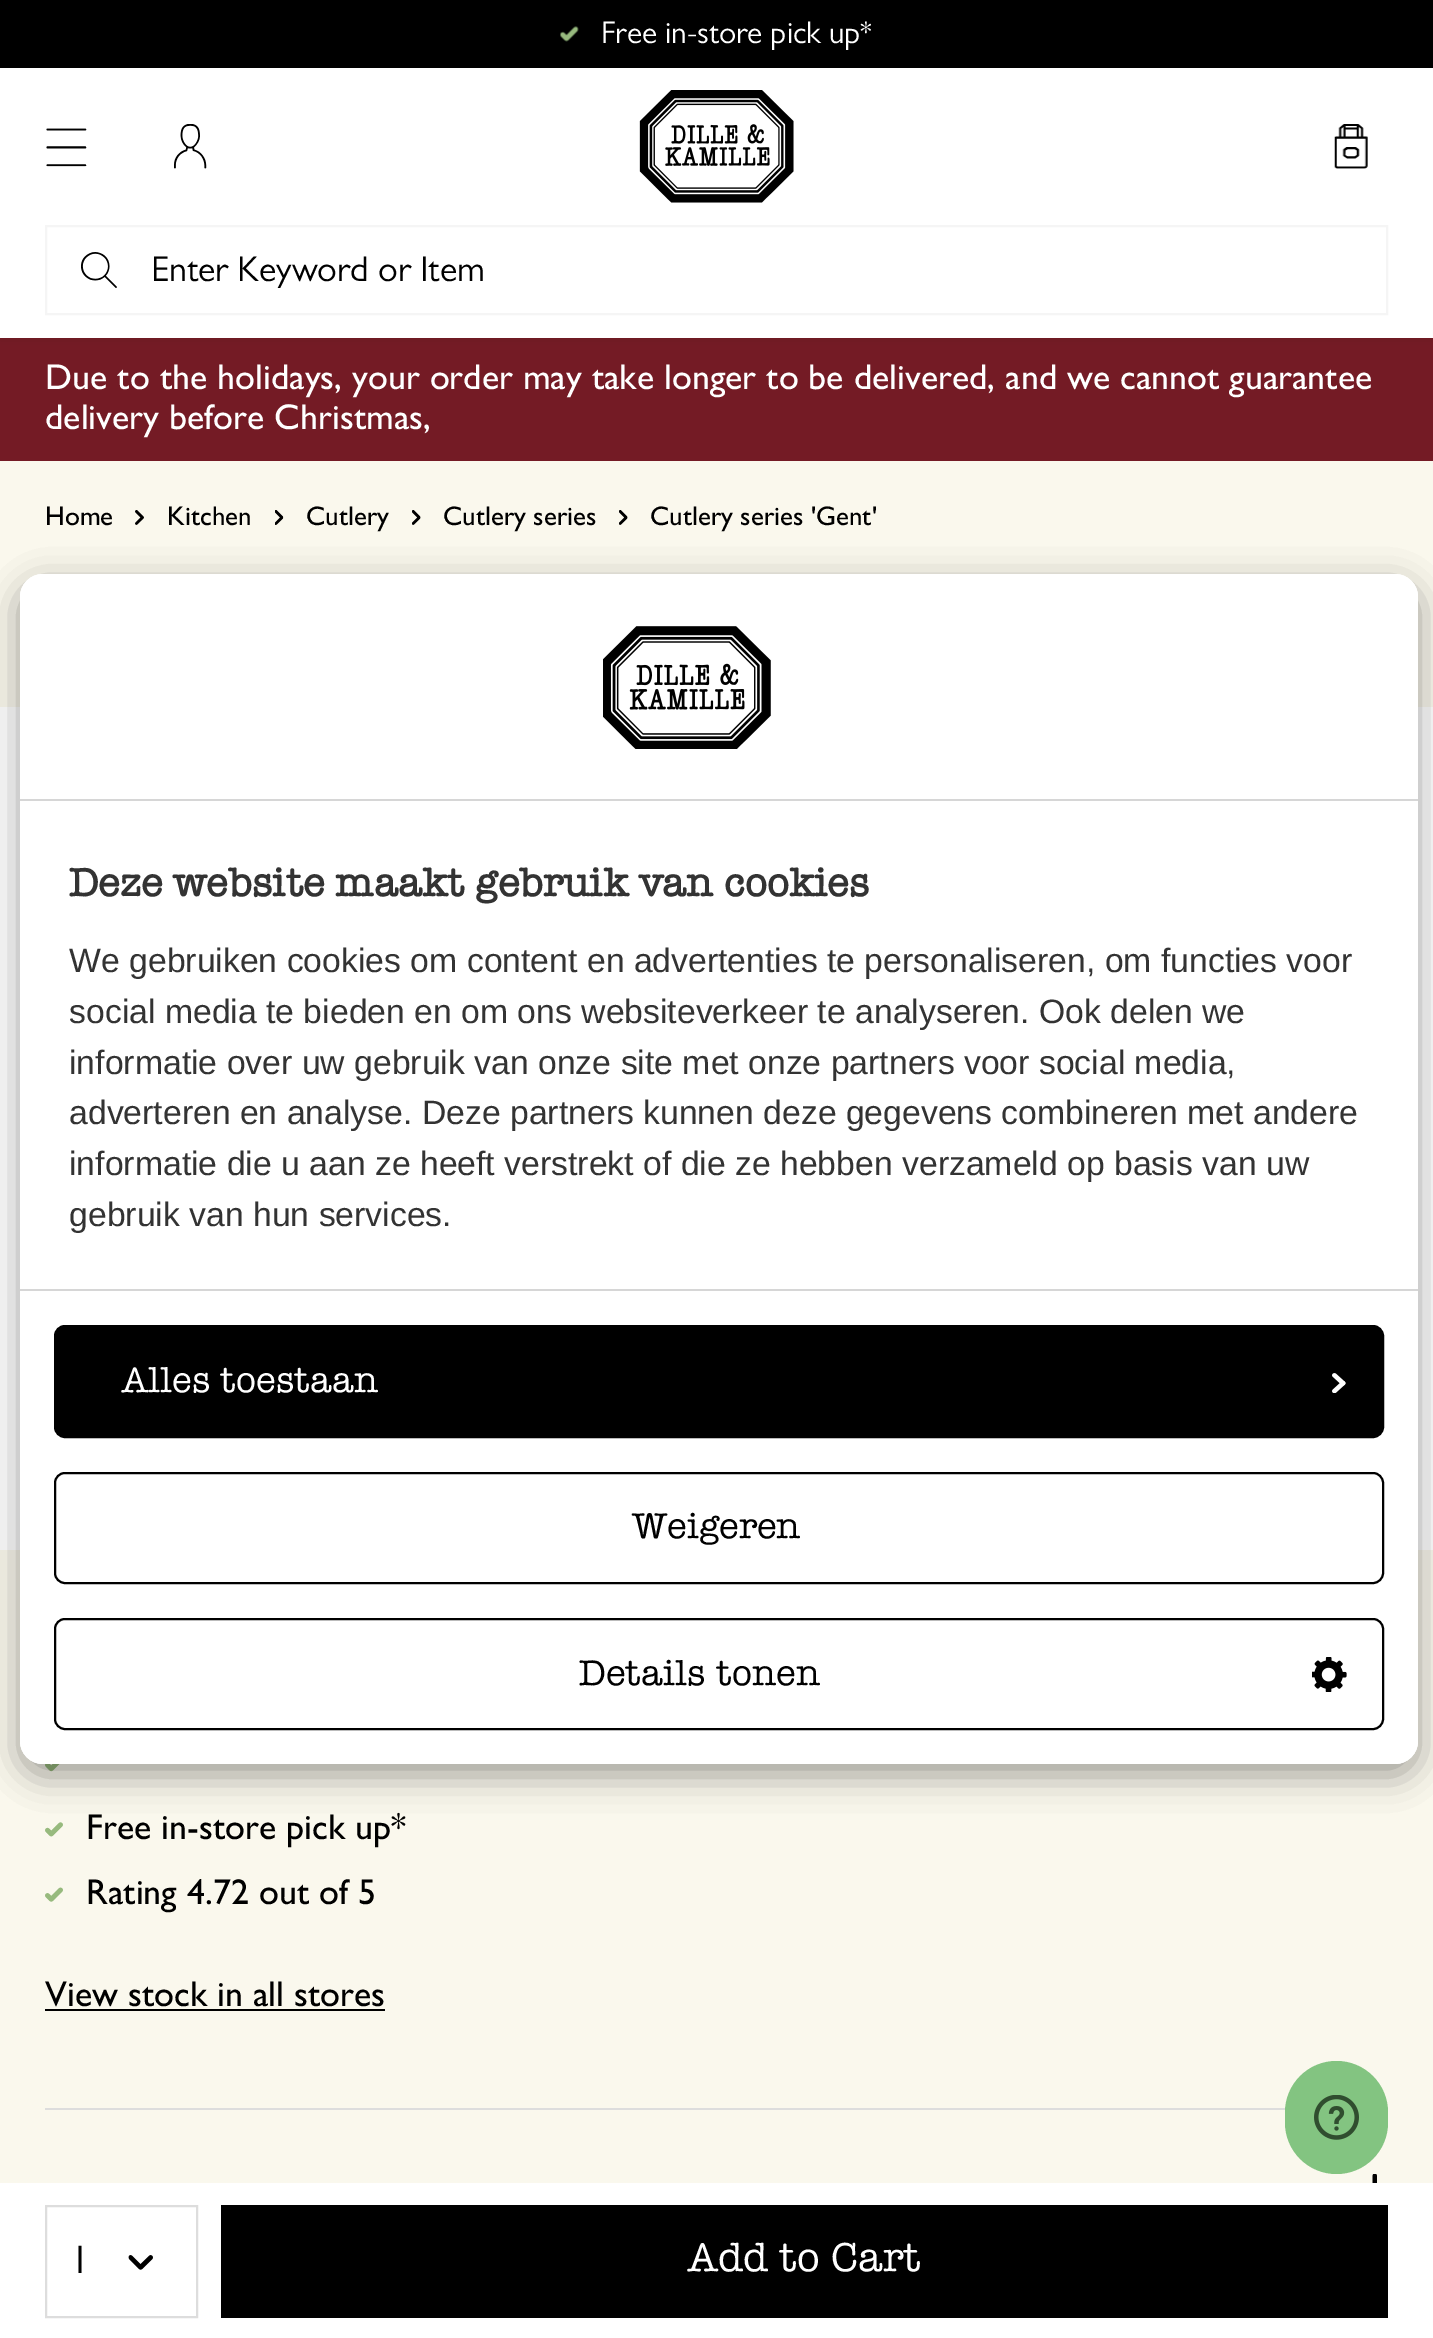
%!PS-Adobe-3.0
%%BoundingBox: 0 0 1433 2338
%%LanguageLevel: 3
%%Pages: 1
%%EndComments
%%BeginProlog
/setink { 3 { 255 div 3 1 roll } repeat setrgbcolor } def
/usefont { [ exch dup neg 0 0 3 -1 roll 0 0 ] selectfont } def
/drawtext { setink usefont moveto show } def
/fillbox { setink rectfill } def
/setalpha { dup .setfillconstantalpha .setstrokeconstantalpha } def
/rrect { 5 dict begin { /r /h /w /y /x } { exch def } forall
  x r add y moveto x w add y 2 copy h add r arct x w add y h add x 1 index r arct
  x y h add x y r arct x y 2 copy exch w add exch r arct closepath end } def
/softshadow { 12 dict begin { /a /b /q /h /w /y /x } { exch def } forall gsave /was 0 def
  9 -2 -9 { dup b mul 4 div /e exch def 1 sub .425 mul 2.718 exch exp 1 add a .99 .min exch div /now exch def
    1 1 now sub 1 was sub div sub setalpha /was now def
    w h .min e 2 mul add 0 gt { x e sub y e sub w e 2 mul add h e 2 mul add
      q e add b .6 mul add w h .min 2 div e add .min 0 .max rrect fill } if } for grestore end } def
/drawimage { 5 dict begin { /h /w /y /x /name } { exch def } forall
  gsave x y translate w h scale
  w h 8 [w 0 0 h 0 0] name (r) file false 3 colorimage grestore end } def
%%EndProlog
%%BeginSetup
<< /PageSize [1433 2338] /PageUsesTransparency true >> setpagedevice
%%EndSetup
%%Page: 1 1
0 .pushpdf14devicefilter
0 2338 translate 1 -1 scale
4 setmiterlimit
0 0 1433 2338 250 248 237 fillbox
0 338 1433 123 116 27 37 fillbox
0 0 0 setink
0 0 1433 338 0 5.5 0.1 softshadow
0 68 1433 270 255 255 255 fillbox
0 0 1433 68 0 0 0 fillbox
(assets/img1.rgb) 560 26 19 16 drawimage
(Free in-store pick up*) 601 43 /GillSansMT-Light 31.5 255 255 255 drawtext
(assets/img2.rgb) 46 128 41 39 drawimage
(assets/img3.rgb) 174 124 33 45 drawimage
(assets/img4.rgb) 639 90 155 113 drawimage
(assets/img5.rgb) 1334 124 34 45 drawimage
(assets/img6.rgb) 81 252 36 36 drawimage
245 245 245 setink
2 setlinewidth
46 226 1341 88 rectstroke
gsave
151 252 1197 36 rectclip
(Enter Keyword or Item) 151 281 /GillSansMT-Light 36 0 0 0 drawtext
grestore
(Due to the holidays, your order may take longer to be delivered, and we cannot guarantee) 45 389 /GillSansMT-Medium 36 255 255 255 drawtext
(delivery before Christmas,) 45 429 /GillSansMT-Medium 36 255 255 255 drawtext
(Home) 45 525 /GillSansMT-Medium 27 0 0 0 drawtext
(assets/img7.rgb) 135 510 9 15 drawimage
(Kitchen) 167 525 /GillSansMT-Medium 27 0 0 0 drawtext
(assets/img8.rgb) 275 510 9 15 drawimage
(Cutlery) 306 525 /GillSansMT-Medium 27 0 0 0 drawtext
(assets/img9.rgb) 412 510 9 15 drawimage
(Cutlery series) 443 525 /GillSansMT-Medium 27 0 0 0 drawtext
(assets/img9.rgb) 619 510 9 15 drawimage
(Cutlery series 'Gent') 650 525 /GillSansMT-Medium 27 0 0 0 drawtext
0 707 1433 843 255 255 255 fillbox
(assets/img10.rgb) 45 1764 15 8 drawimage
(assets/img11.rgb) 45 1822 18 15 drawimage
(Free in-store pick up*) 86 1839 /GillSansMT-Medium 36 0 0 0 drawtext
(assets/img12.rgb) 45 1887 18 15 drawimage
(Rating 4.72 out of 5) 86 1904 /GillSansMT-Medium 36 0 0 0 drawtext
(View stock in all stores) 45 2006 /GillSansMT-Medium 36 0 0 0 drawtext
45 2009 340 2 0 0 0 fillbox
45 2108 1343 2 221 221 221 fillbox
(assets/img13.rgb) 1372 2174 5 9 drawimage
0 2183 1433 155 255 255 255 fillbox
(assets/img14.rgb) 128 2255 25 15 drawimage
221 221 221 setink
46 2206 151 111 rectstroke
(1) 70 2273 /GillSansMT-Light 40 0 0 0 drawtext
221 2205 1167 113 0 0 0 fillbox
(Add to Cart) 688 2271 /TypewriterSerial-Regular 38.25 255 255 255 drawtext
0 0 0 setink
20 585 1398 1190 23 17 0.19 softshadow
20 585 1398 1190 23 17 0.2 softshadow
255 255 255 setink
20 574 1398 1190 23 rrect fill
43 574 moveto 1395 574 lineto 1407.5 574 1418 584.5 1418 597 curveto 1418 801 lineto 20 801 lineto 20 597 lineto 20 584.5 30.5 574 43 574 curveto closepath fill
20 799 1398 2 214 214 214 fillbox
(assets/img15.rgb) 603 626 168 123 drawimage
(Deze website maakt gebruik van cookies) 69 896 /TypewriterSerial-Bold 37.1 51 51 51 drawtext
(We gebruiken cookies om content en advertenties te personaliseren, om functies voor) 69 972 /LiberationSans-Regular 33.75 51 51 51 drawtext
(social media te bieden en om ons websiteverkeer te analyseren. Ook delen we) 69 1023 /LiberationSans-Regular 33.75 51 51 51 drawtext
(informatie over uw gebruik van onze site met onze partners voor social media,) 69 1074 /LiberationSans-Regular 33.75 51 51 51 drawtext
(adverteren en analyse. Deze partners kunnen deze gegevens combineren met andere) 69 1124 /LiberationSans-Regular 33.75 51 51 51 drawtext
(informatie die u aan ze heeft verstrekt of die ze hebben verzameld op basis van uw) 69 1175 /LiberationSans-Regular 33.75 51 51 51 drawtext
(gebruik van hun services.) 69 1226 /LiberationSans-Regular 33.75 51 51 51 drawtext
255 255 255 setink
20 1289 moveto 1418 1289 lineto 1418 1741 lineto 1418 1753.5 1407.5 1764 1395 1764 curveto 43 1764 lineto 30.5 1764 20 1753.5 20 1741 curveto closepath fill
20 1289 1398 2 214 214 214 fillbox
0 0 0 setink
55 1326 1328 111 10 rrect gsave fill grestore
stroke
(Alles toestaan) 122 1392 /TypewriterSerial-Regular 33.75 255 255 255 drawtext
(assets/img16.rgb) 1332 1373 14 20 drawimage
0 0 0 setink
55 1473 1328 110 10 rrect stroke
(Weigeren) 632 1538 /TypewriterSerial-Regular 33.75 0 0 0 drawtext
55 1619 1328 110 10 rrect stroke
(Details tonen) 579 1685 /TypewriterSerial-Regular 33.75 0 0 0 drawtext
(assets/img17.rgb) 1312 1657 35 35 drawimage
131 196 129 setink
1285 2061 103 113 51.5 rrect fill
(assets/img18.rgb) 1314 2095 45 45 drawimage
.poppdf14devicefilter showpage
%%EOF
